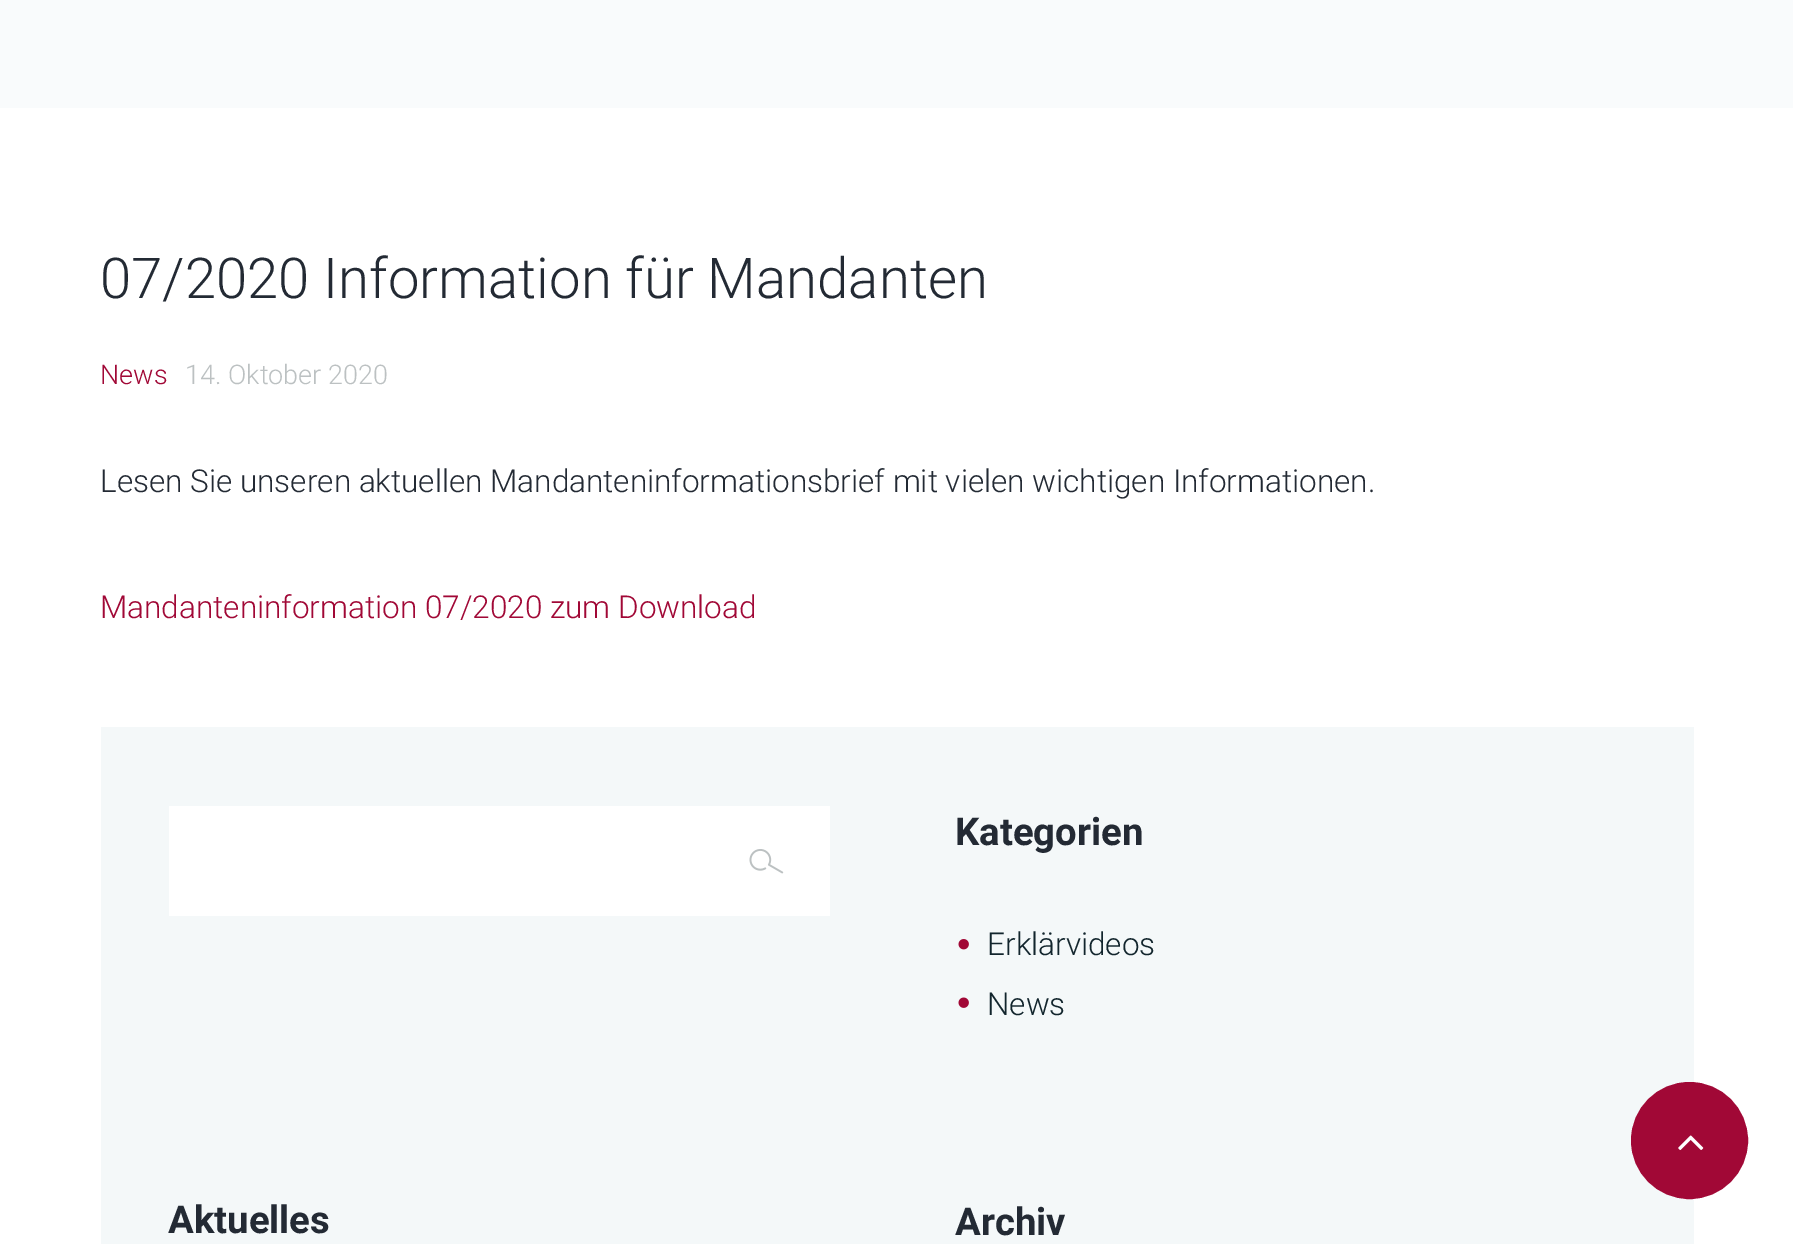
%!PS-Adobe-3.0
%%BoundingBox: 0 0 1793 1244
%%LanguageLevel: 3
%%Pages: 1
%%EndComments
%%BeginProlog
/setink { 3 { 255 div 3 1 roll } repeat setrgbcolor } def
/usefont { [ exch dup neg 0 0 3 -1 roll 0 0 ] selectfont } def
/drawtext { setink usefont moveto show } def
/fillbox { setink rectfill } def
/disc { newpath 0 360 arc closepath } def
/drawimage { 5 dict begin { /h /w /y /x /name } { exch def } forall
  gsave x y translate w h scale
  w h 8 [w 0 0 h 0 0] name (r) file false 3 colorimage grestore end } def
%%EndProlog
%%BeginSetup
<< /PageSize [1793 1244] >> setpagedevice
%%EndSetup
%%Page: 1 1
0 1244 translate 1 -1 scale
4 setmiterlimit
0 0 1793 1244 255 255 255 fillbox
0 0 1793 108 249 251 252 fillbox
(07/2020 Information für Mandanten) 100 298 /Roboto-Light 56.25 35 42 52 drawtext
(News) 100 384 /Roboto-Light 27 161 8 54 drawtext
(14. Oktober 2020) 185 384 /Roboto-Light 27 188 193 194 drawtext
(Lesen Sie unseren aktuellen Mandanteninformationsbrief mit vielen wichtigen Informationen.) 100 492 /Roboto-Light 31.5 35 42 52 drawtext
(Mandanteninformation 07/2020 zum Download) 100 618 /Roboto-Light 31.5 161 8 54 drawtext
101 727 1593 517 244 248 249 fillbox
169 806 661 110 255 255 255 fillbox
(assets/img1.rgb) 749 849 35 25 drawimage
(Kategorien) 955 845 /Roboto-Bold 38.25 35 42 52 drawtext
(assets/img2.rgb) 958 939 11 11 drawimage
(Erklärvideos) 987 955 /Roboto-Light 31.5 18 37 45 drawtext
(assets/img3.rgb) 958 997 11 11 drawimage
(News) 987 1015 /Roboto-Light 31.5 18 37 45 drawtext
(Aktuelles) 168 1233 /Roboto-Bold 38.25 35 42 52 drawtext
(Archiv) 955 1235 /Roboto-Bold 38.25 35 42 52 drawtext
161 8 54 setink
1689.5 1140.5 56 disc gsave fill grestore
5 setlinewidth
stroke
(assets/img4.rgb) 1678 1135 26 15 drawimage
showpage
%%EOF
